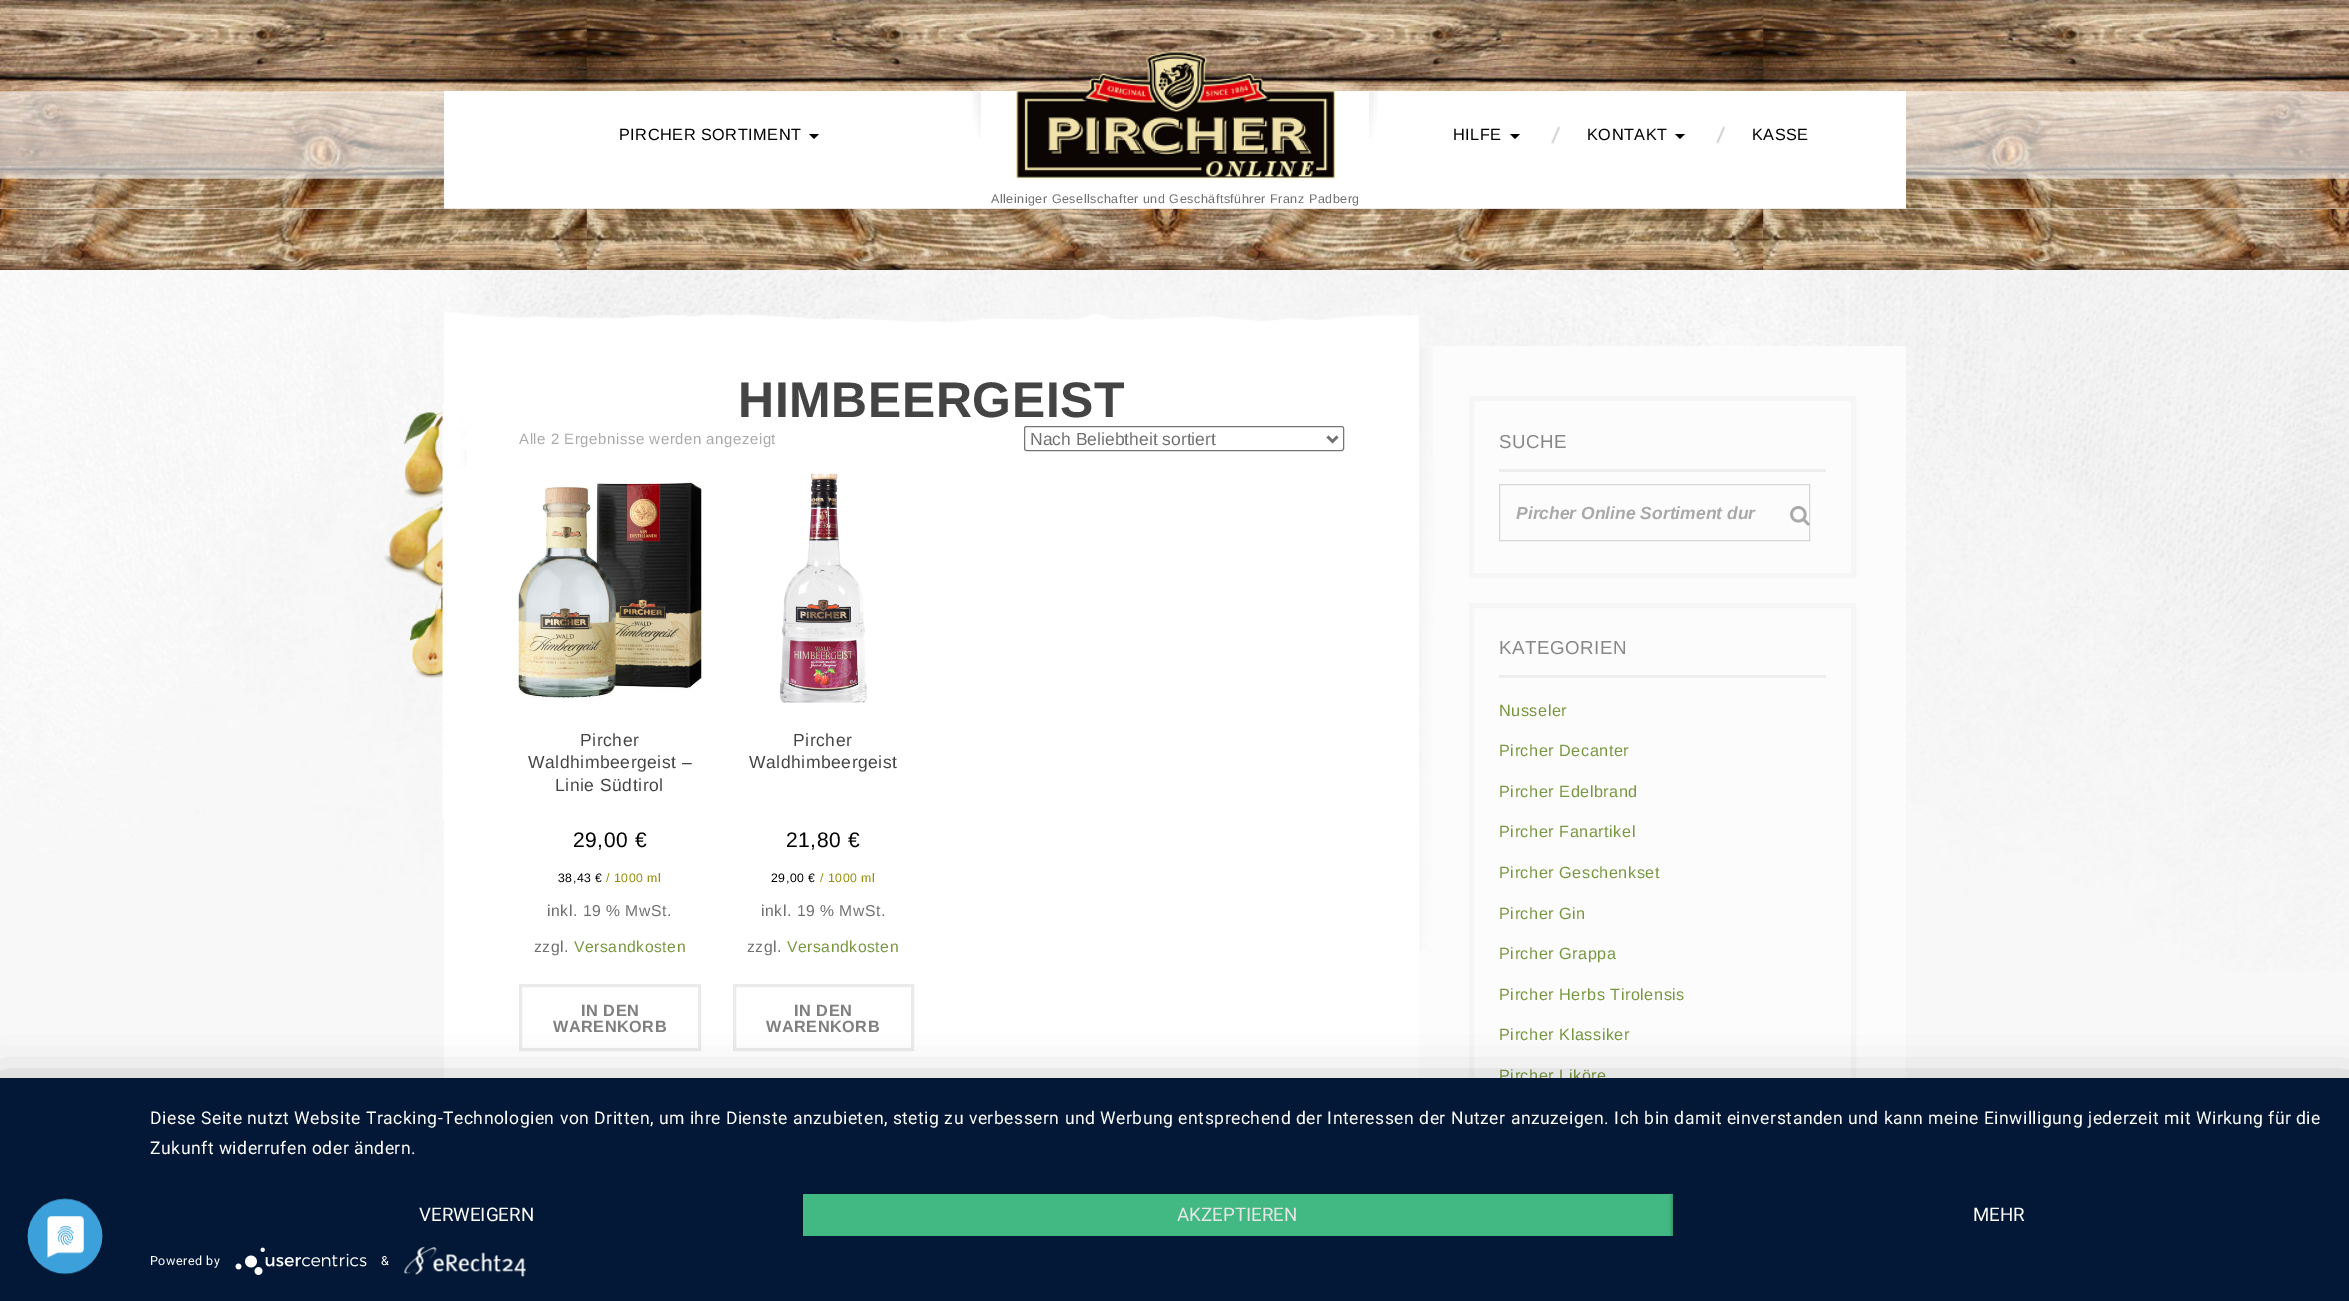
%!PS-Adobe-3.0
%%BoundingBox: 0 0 2349 1301
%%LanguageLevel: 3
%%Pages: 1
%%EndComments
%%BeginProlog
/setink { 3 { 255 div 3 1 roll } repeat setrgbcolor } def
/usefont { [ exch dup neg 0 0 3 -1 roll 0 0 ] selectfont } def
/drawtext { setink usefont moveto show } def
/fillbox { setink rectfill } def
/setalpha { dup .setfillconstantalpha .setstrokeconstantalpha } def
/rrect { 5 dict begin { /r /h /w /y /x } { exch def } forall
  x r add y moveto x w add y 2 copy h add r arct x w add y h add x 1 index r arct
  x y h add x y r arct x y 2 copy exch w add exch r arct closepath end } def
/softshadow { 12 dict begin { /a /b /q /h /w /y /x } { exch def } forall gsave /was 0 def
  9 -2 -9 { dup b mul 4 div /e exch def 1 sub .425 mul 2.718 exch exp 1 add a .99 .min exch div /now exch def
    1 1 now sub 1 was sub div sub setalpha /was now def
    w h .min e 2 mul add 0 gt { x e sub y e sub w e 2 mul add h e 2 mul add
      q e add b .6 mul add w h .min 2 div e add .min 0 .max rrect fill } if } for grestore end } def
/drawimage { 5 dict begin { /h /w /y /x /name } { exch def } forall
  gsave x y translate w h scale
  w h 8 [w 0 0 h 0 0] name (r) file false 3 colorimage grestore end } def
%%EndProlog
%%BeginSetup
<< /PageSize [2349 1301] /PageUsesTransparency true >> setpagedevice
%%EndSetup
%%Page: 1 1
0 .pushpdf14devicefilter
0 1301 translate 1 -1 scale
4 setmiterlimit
0 0 2349 1301 248 248 248 fillbox
(assets/img1.rgb) 0 0 2349 209 drawimage
444 91 1462 118 255 255 255 fillbox
(assets/img2.rgb) 972 91 9 47 drawimage
(assets/img3.rgb) 1016 51 319 128 drawimage
(assets/img4.rgb) 1369 91 9 47 drawimage
/LiberationSans-Regular 16.25 usefont
0 0 0 setink
619 140 moveto 0.53 0 (PIRCHER SORTIMENT) ashow
809 134 moveto 819 134 lineto 814 139 lineto closepath fill
(assets/img5.rgb) 1551 126 9 18 drawimage
1453 140 moveto 0.53 0 (HILFE) ashow
1510 134 moveto 1520 134 lineto 1515 139 lineto closepath fill
(assets/img5.rgb) 1716 126 9 18 drawimage
1587 140 moveto 0.53 0 (KONTAKT) ashow
1675 134 moveto 1685 134 lineto 1680 139 lineto closepath fill
1752 140 moveto 0.53 0 (KASSE) ashow
/LiberationSans-Regular 12.5 usefont
112 112 112 setink
991 203 moveto 0.53 0 (Alleiniger Gesellschafter und Geschäftsführer Franz Padberg) ashow
(assets/img6.rgb) 0 208 2349 763 drawimage
(assets/img7.rgb) 0 208 2349 62 drawimage
(assets/img8.rgb) 444 311 975 35 drawimage
444 346 975 732 255 255 255 fillbox
(assets/img9.rgb) 383 403 84 416 drawimage
/LiberationSans-Bold 50 usefont
68 68 68 setink
738 417 moveto 0.53 0 (HIMBEERGEIST) ashow
/LiberationSans-Regular 15 usefont
169 169 169 setink
519 444 moveto 0.53 0 (Alle 2 Ergebnisse werden angezeigt) ashow
118 118 118 setink
1024.5 426.5 319 24 2 rrect stroke
112 112 112 setink
2.5 setlinewidth
1327.5 436.5 moveto 1332.5 441.5 lineto 1337.5 436.5 lineto stroke
(Nach Beliebtheit sortiert) 1030 445 /LiberationSans-Regular 17.5 112 112 112 drawtext
(assets/img10.rgb) 518 482 184 217 drawimage
68 68 68 setink
580 746 moveto 0.53 0 (Pircher) ashow
528 768 moveto 0.53 0 (Waldhimbeergeist –) ashow
555 791 moveto 0.53 0 (Linie Südtirol) ashow
/LiberationSans-Regular 21 usefont
0 0 0 setink
573 847 moveto 0.53 0 (29,00 €) ashow
/LiberationSans-Regular 12.25 usefont
558 882 moveto 0.53 0 (38,43 €) ashow
149 142 9 setink
606 882 moveto 0.53 0 (/ 1000 ml) ashow
/LiberationSans-Regular 15.75 usefont
112 112 112 setink
547 916 moveto 0.53 0 (inkl. 19 % MwSt.) ashow
534 952 moveto 0.53 0 (zzgl.) ashow
120 151 65 setink
574 952 moveto 0.53 0 (Versandkosten) ashow
235 235 235 setink
3 setlinewidth
520.5 985.5 179 64 rectstroke
/LiberationSans-Bold 16.25 usefont
128 128 128 setink
581 1016 moveto 0.53 0 (IN DEN) ashow
553 1032 moveto 0.53 0 (WARENKORB) ashow
(assets/img11.rgb) 779 473 88 230 drawimage
/LiberationSans-Regular 17.5 usefont
68 68 68 setink
793 746 moveto 0.53 0 (Pircher) ashow
749 768 moveto 0.53 0 (Waldhimbeergeist) ashow
/LiberationSans-Regular 21 usefont
0 0 0 setink
786 847 moveto 0.53 0 (21,80 €) ashow
/LiberationSans-Regular 12.25 usefont
771 882 moveto 0.53 0 (29,00 €) ashow
149 142 9 setink
820 882 moveto 0.53 0 (/ 1000 ml) ashow
/LiberationSans-Regular 15.75 usefont
112 112 112 setink
761 916 moveto 0.53 0 (inkl. 19 % MwSt.) ashow
747 952 moveto 0.53 0 (zzgl.) ashow
120 151 65 setink
787 952 moveto 0.53 0 (Versandkosten) ashow
235 235 235 setink
734.5 985.5 178 64 rectstroke
/LiberationSans-Bold 16.25 usefont
128 128 128 setink
794 1016 moveto 0.53 0 (IN DEN) ashow
766 1032 moveto 0.53 0 (WARENKORB) ashow
1419 346 487 732 252 252 252 fillbox
(assets/img12.rgb) 1419 346 14 605 drawimage
246 246 246 setink
5 setlinewidth
1471.5 398.5 382 177 rectstroke
1499 469 327 3 238 238 238 fillbox
/LiberationSans-Regular 18.75 usefont
136 136 136 setink
1499 448 moveto 0.53 0 (SUCHE) ashow
214 214 214 setink
1 setlinewidth
1499.5 484.5 310 56 rectstroke
(Pircher Online Sortiment dur) 1516 519 /LiberationSans-BoldItalic 17.5 169 169 169 drawtext
(assets/img13.rgb) 1790 506 20 20 drawimage
246 246 246 setink
5 setlinewidth
1471.5 605.5 382 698 rectstroke
1499 675 327 3 238 238 238 fillbox
/LiberationSans-Regular 18.75 usefont
136 136 136 setink
1499 654 moveto 0.53 0 (KATEGORIEN) ashow
/LiberationSans-Regular 16.25 usefont
120 151 65 setink
1499 716 moveto 0.53 0 (Nusseler) ashow
1499 756 moveto 0.53 0 (Pircher Decanter) ashow
1499 797 moveto 0.53 0 (Pircher Edelbrand) ashow
1499 837 moveto 0.53 0 (Pircher Fanartikel) ashow
1499 878 moveto 0.53 0 (Pircher Geschenkset) ashow
1499 919 moveto 0.53 0 (Pircher Gin) ashow
1499 959 moveto 0.53 0 (Pircher Grappa) ashow
1499 1000 moveto 0.53 0 (Pircher Herbs Tirolensis) ashow
1499 1040 moveto 0.53 0 (Pircher Klassiker) ashow
1499 1081 moveto 0.53 0 (Pircher Liköre) ashow
0 0 0 setink
0 1085 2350 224 0 22.5 0.3 softshadow
0 1078 2349 223 2 24 54 fillbox
(assets/img14.rgb) 26 1197 78 78 drawimage
/Roboto-Regular 17.5 usefont
255 255 255 setink
150 1124 moveto 0.53 0 (Diese Seite nutzt Website Tracking-Technologien von Dritten, um ihre Dienste anzubieten, stetig zu verbessern und Werbung entsprechend der Interessen der Nutzer anzuzeigen. Ich bin damit einverstanden und kann meine Einwilligung jederzeit mit Wirkung für die) ashow
150 1154 moveto 0.53 0 (Zukunft widerrufen oder ändern.) ashow
(VERWEIGERN) 419 1221 /Roboto-Regular 18.75 255 255 255 drawtext
gsave
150 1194 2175 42 rectclip
0 0 0 setink
803 1195 870 43 0 2.5 0.4 softshadow
grestore
803 1194 870 42 66 185 131 fillbox
(AKZEPTIEREN) 1177 1221 /Roboto-Regular 18.75 230 230 230 drawtext
gsave
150 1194 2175 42 rectclip
0 0 0 setink
1673 1195 652 43 0 2.5 0.4 softshadow
grestore
1673 1194 652 42 2 24 54 fillbox
(MEHR) 1973 1221 /Roboto-Regular 18.75 255 255 255 drawtext
/Roboto-Regular 12.5 usefont
150 1265 moveto 0.53 0 (Powered by) ashow
(assets/img15.rgb) 235 1247 132 28 drawimage
381 1265 moveto 0.53 0 (&) ashow
(assets/img16.rgb) 404 1246 123 31 drawimage
.poppdf14devicefilter showpage
%%EOF
